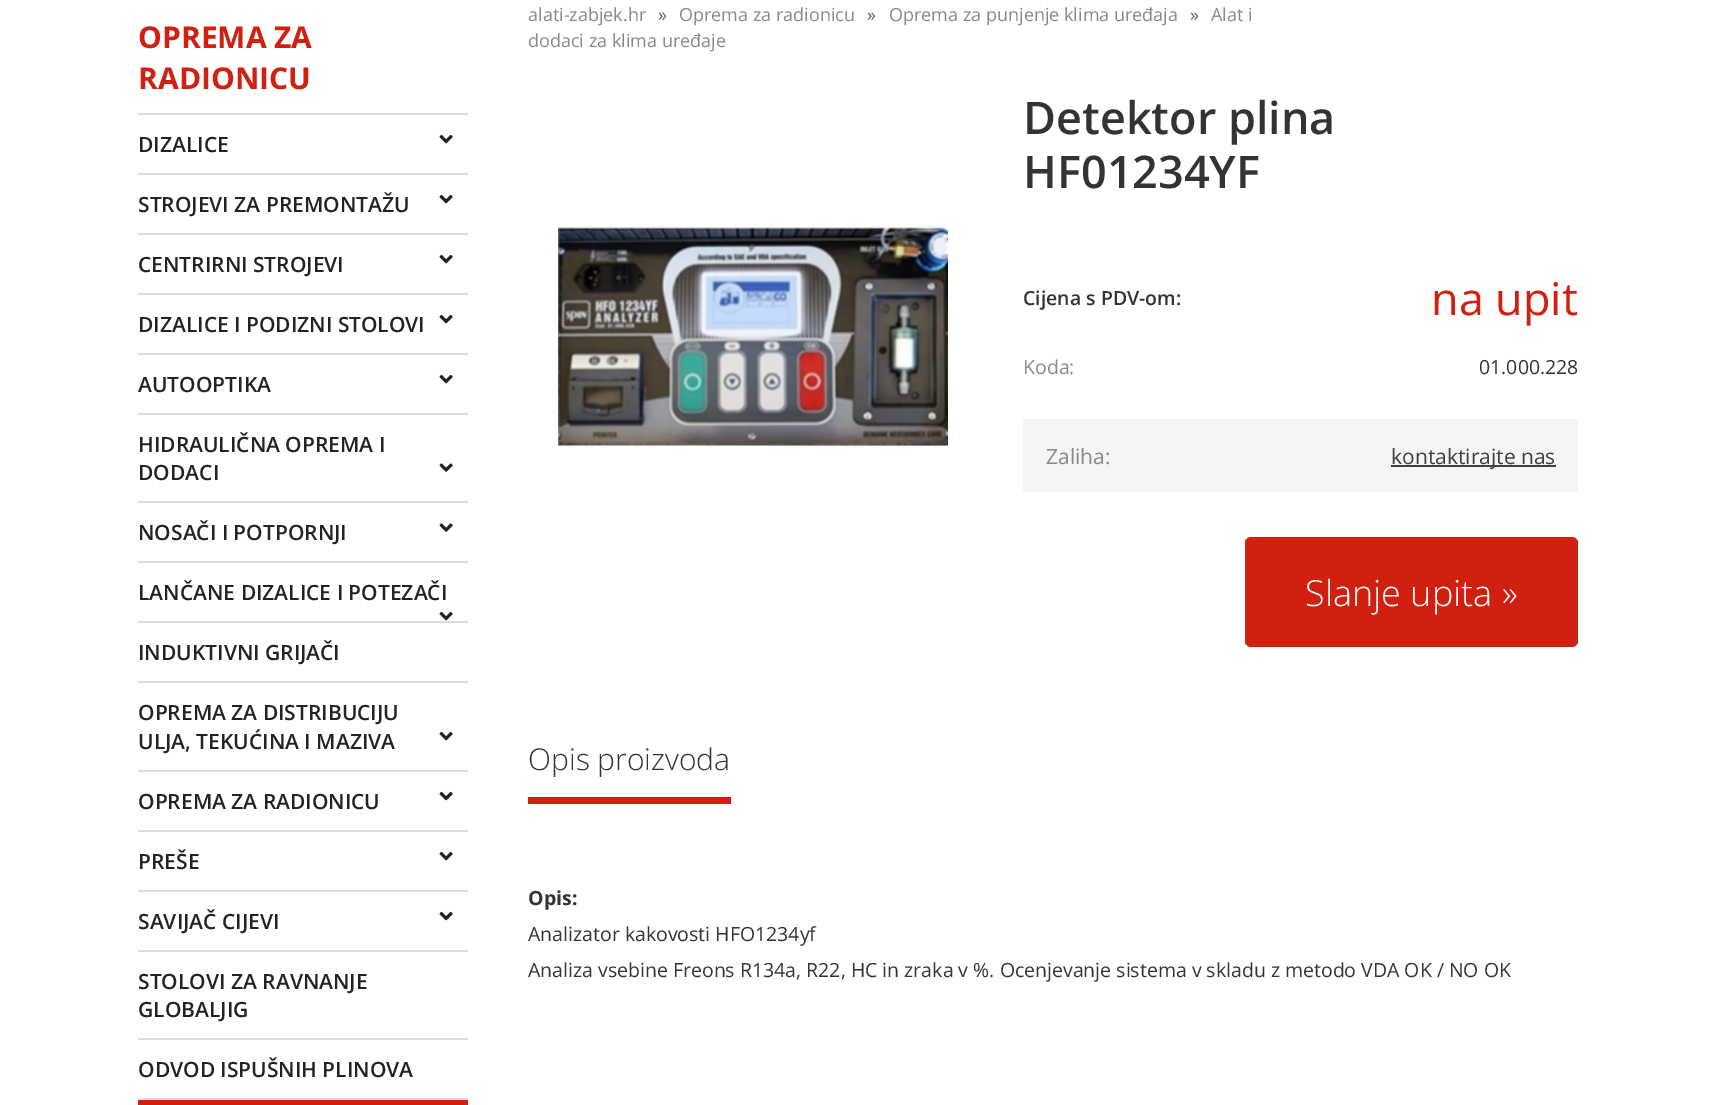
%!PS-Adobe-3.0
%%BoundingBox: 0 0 1716 1105
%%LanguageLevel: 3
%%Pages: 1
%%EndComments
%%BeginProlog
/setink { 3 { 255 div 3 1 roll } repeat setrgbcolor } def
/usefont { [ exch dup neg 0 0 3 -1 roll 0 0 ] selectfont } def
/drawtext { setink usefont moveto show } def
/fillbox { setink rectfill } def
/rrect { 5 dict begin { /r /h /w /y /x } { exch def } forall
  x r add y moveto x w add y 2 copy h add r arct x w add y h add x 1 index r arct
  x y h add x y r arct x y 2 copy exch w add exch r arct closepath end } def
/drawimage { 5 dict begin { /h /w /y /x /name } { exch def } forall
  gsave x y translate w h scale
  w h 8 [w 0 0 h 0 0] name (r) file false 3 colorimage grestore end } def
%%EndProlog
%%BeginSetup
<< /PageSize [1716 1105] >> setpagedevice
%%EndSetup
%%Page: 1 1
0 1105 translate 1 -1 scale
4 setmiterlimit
0 0 1716 1105 255 255 255 fillbox
(OPREMA ZA) 138 48 /OpenSans-Bold 30 209 32 16 drawtext
(RADIONICU) 138 89 /OpenSans-Bold 30 209 32 16 drawtext
138 113 330 2 221 221 221 fillbox
(DIZALICE) 138 152 /OpenSans-SemiBold 21 34 34 34 drawtext
(assets/img1.rgb) 439 134 14 10 drawimage
138 173 330 2 221 221 221 fillbox
(STROJEVI ZA PREMONTAŽU) 138 212 /OpenSans-SemiBold 21 34 34 34 drawtext
(assets/img1.rgb) 439 194 14 10 drawimage
138 233 330 2 221 221 221 fillbox
(CENTRIRNI STROJEVI) 138 272 /OpenSans-SemiBold 21 34 34 34 drawtext
(assets/img1.rgb) 439 254 14 10 drawimage
138 293 330 2 221 221 221 fillbox
(DIZALICE I PODIZNI STOLOVI) 138 332 /OpenSans-SemiBold 21 34 34 34 drawtext
(assets/img1.rgb) 439 314 14 10 drawimage
138 353 330 2 221 221 221 fillbox
(AUTOOPTIKA) 138 392 /OpenSans-SemiBold 21 34 34 34 drawtext
(assets/img1.rgb) 439 374 14 10 drawimage
138 413 330 2 221 221 221 fillbox
(HIDRAULIČNA OPREMA I) 138 452 /OpenSans-SemiBold 21 34 34 34 drawtext
(DODACI) 138 480 /OpenSans-SemiBold 21 34 34 34 drawtext
(assets/img2.rgb) 439 463 14 9 drawimage
138 501 330 2 221 221 221 fillbox
(NOSAČI I POTPORNJI) 138 540 /OpenSans-SemiBold 21 34 34 34 drawtext
(assets/img2.rgb) 439 523 14 9 drawimage
138 561 330 2 221 221 221 fillbox
(LANČANE DIZALICE I POTEZAČI) 138 600 /OpenSans-SemiBold 21 34 34 34 drawtext
(assets/img1.rgb) 439 611 14 10 drawimage
138 621 330 2 221 221 221 fillbox
(INDUKTIVNI GRIJAČI) 138 660 /OpenSans-SemiBold 21 34 34 34 drawtext
138 681 330 2 221 221 221 fillbox
(OPREMA ZA DISTRIBUCIJU) 138 720 /OpenSans-SemiBold 21 34 34 34 drawtext
(ULJA, TEKUĆINA I MAZIVA) 138 749 /OpenSans-SemiBold 21 34 34 34 drawtext
(assets/img1.rgb) 439 731 14 10 drawimage
138 770 330 2 221 221 221 fillbox
(OPREMA ZA RADIONICU) 138 809 /OpenSans-SemiBold 21 34 34 34 drawtext
(assets/img1.rgb) 439 791 14 10 drawimage
138 830 330 2 221 221 221 fillbox
(PREŠE) 138 869 /OpenSans-SemiBold 21 34 34 34 drawtext
(assets/img1.rgb) 439 851 14 10 drawimage
138 890 330 2 221 221 221 fillbox
(SAVIJAČ CIJEVI) 138 929 /OpenSans-SemiBold 21 34 34 34 drawtext
(assets/img1.rgb) 439 911 14 10 drawimage
138 950 330 2 221 221 221 fillbox
(STOLOVI ZA RAVNANJE) 138 989 /OpenSans-SemiBold 21 34 34 34 drawtext
(GLOBALJIG) 138 1017 /OpenSans-SemiBold 21 34 34 34 drawtext
138 1038 330 2 221 221 221 fillbox
(ODVOD ISPUŠNIH PLINOVA) 138 1077 /OpenSans-SemiBold 21 34 34 34 drawtext
138 1098 330 2 221 221 221 fillbox
138 1100 330 5 209 32 16 fillbox
(alati-zabjek.hr) 528 21 /OpenSans-Regular 18 136 136 136 drawtext
(») 658 21 /OpenSans-Regular 18 96 96 96 drawtext
(Oprema za radionicu) 679 21 /OpenSans-Regular 18 136 136 136 drawtext
(») 867 21 /OpenSans-Regular 18 96 96 96 drawtext
(Oprema za punjenje klima uređaja) 889 21 /OpenSans-Regular 18 136 136 136 drawtext
(») 1190 21 /OpenSans-Regular 18 96 96 96 drawtext
(Alat i) 1211 21 /OpenSans-Regular 18 136 136 136 drawtext
(dodaci za klima uređaje) 528 47 /OpenSans-Regular 18 136 136 136 drawtext
(Detektor plina) 1023 134 /OpenSans-SemiBold 45 51 51 51 drawtext
(HF01234YF) 1023 188 /OpenSans-SemiBold 45 51 51 51 drawtext
(assets/img3.rgb) 558 227 390 219 drawimage
(Cijena s PDV-om:) 1023 305 /OpenSans-SemiBold 19.5 51 51 51 drawtext
(na upit) 1431 315 /OpenSans-Regular 45 209 32 16 drawtext
(Koda:) 1023 374 /OpenSans-Regular 19.5 136 136 136 drawtext
(01.000.228) 1479 374 /OpenSans-Regular 19.5 51 51 51 drawtext
1023 419 555 73 245 245 245 fillbox
(Zaliha:) 1046 464 /OpenSans-Regular 21 136 136 136 drawtext
1391 465 165 2 64 64 64 fillbox
(kontaktirajte nas) 1391 464 /OpenSans-Regular 21 64 64 64 drawtext
209 32 16 setink
1245 537 333 110 6 rrect fill
(Slanje upita ») 1305 606 /OpenSans-Light 36 255 255 255 drawtext
528 797 203 7 209 32 16 fillbox
(Opis proizvoda) 528 770 /OpenSans-Light 30 51 51 51 drawtext
(Opis:) 528 905 /OpenSans-Bold 19.5 51 51 51 drawtext
(Analizator kakovosti HFO1234yf) 528 941 /OpenSans-Regular 19.5 51 51 51 drawtext
(Analiza vsebine Freons R134a, R22, HC in zraka v %. Ocenjevanje sistema v skladu z metodo VDA OK / NO OK) 528 977 /OpenSans-Regular 19.5 51 51 51 drawtext
showpage
%%EOF
